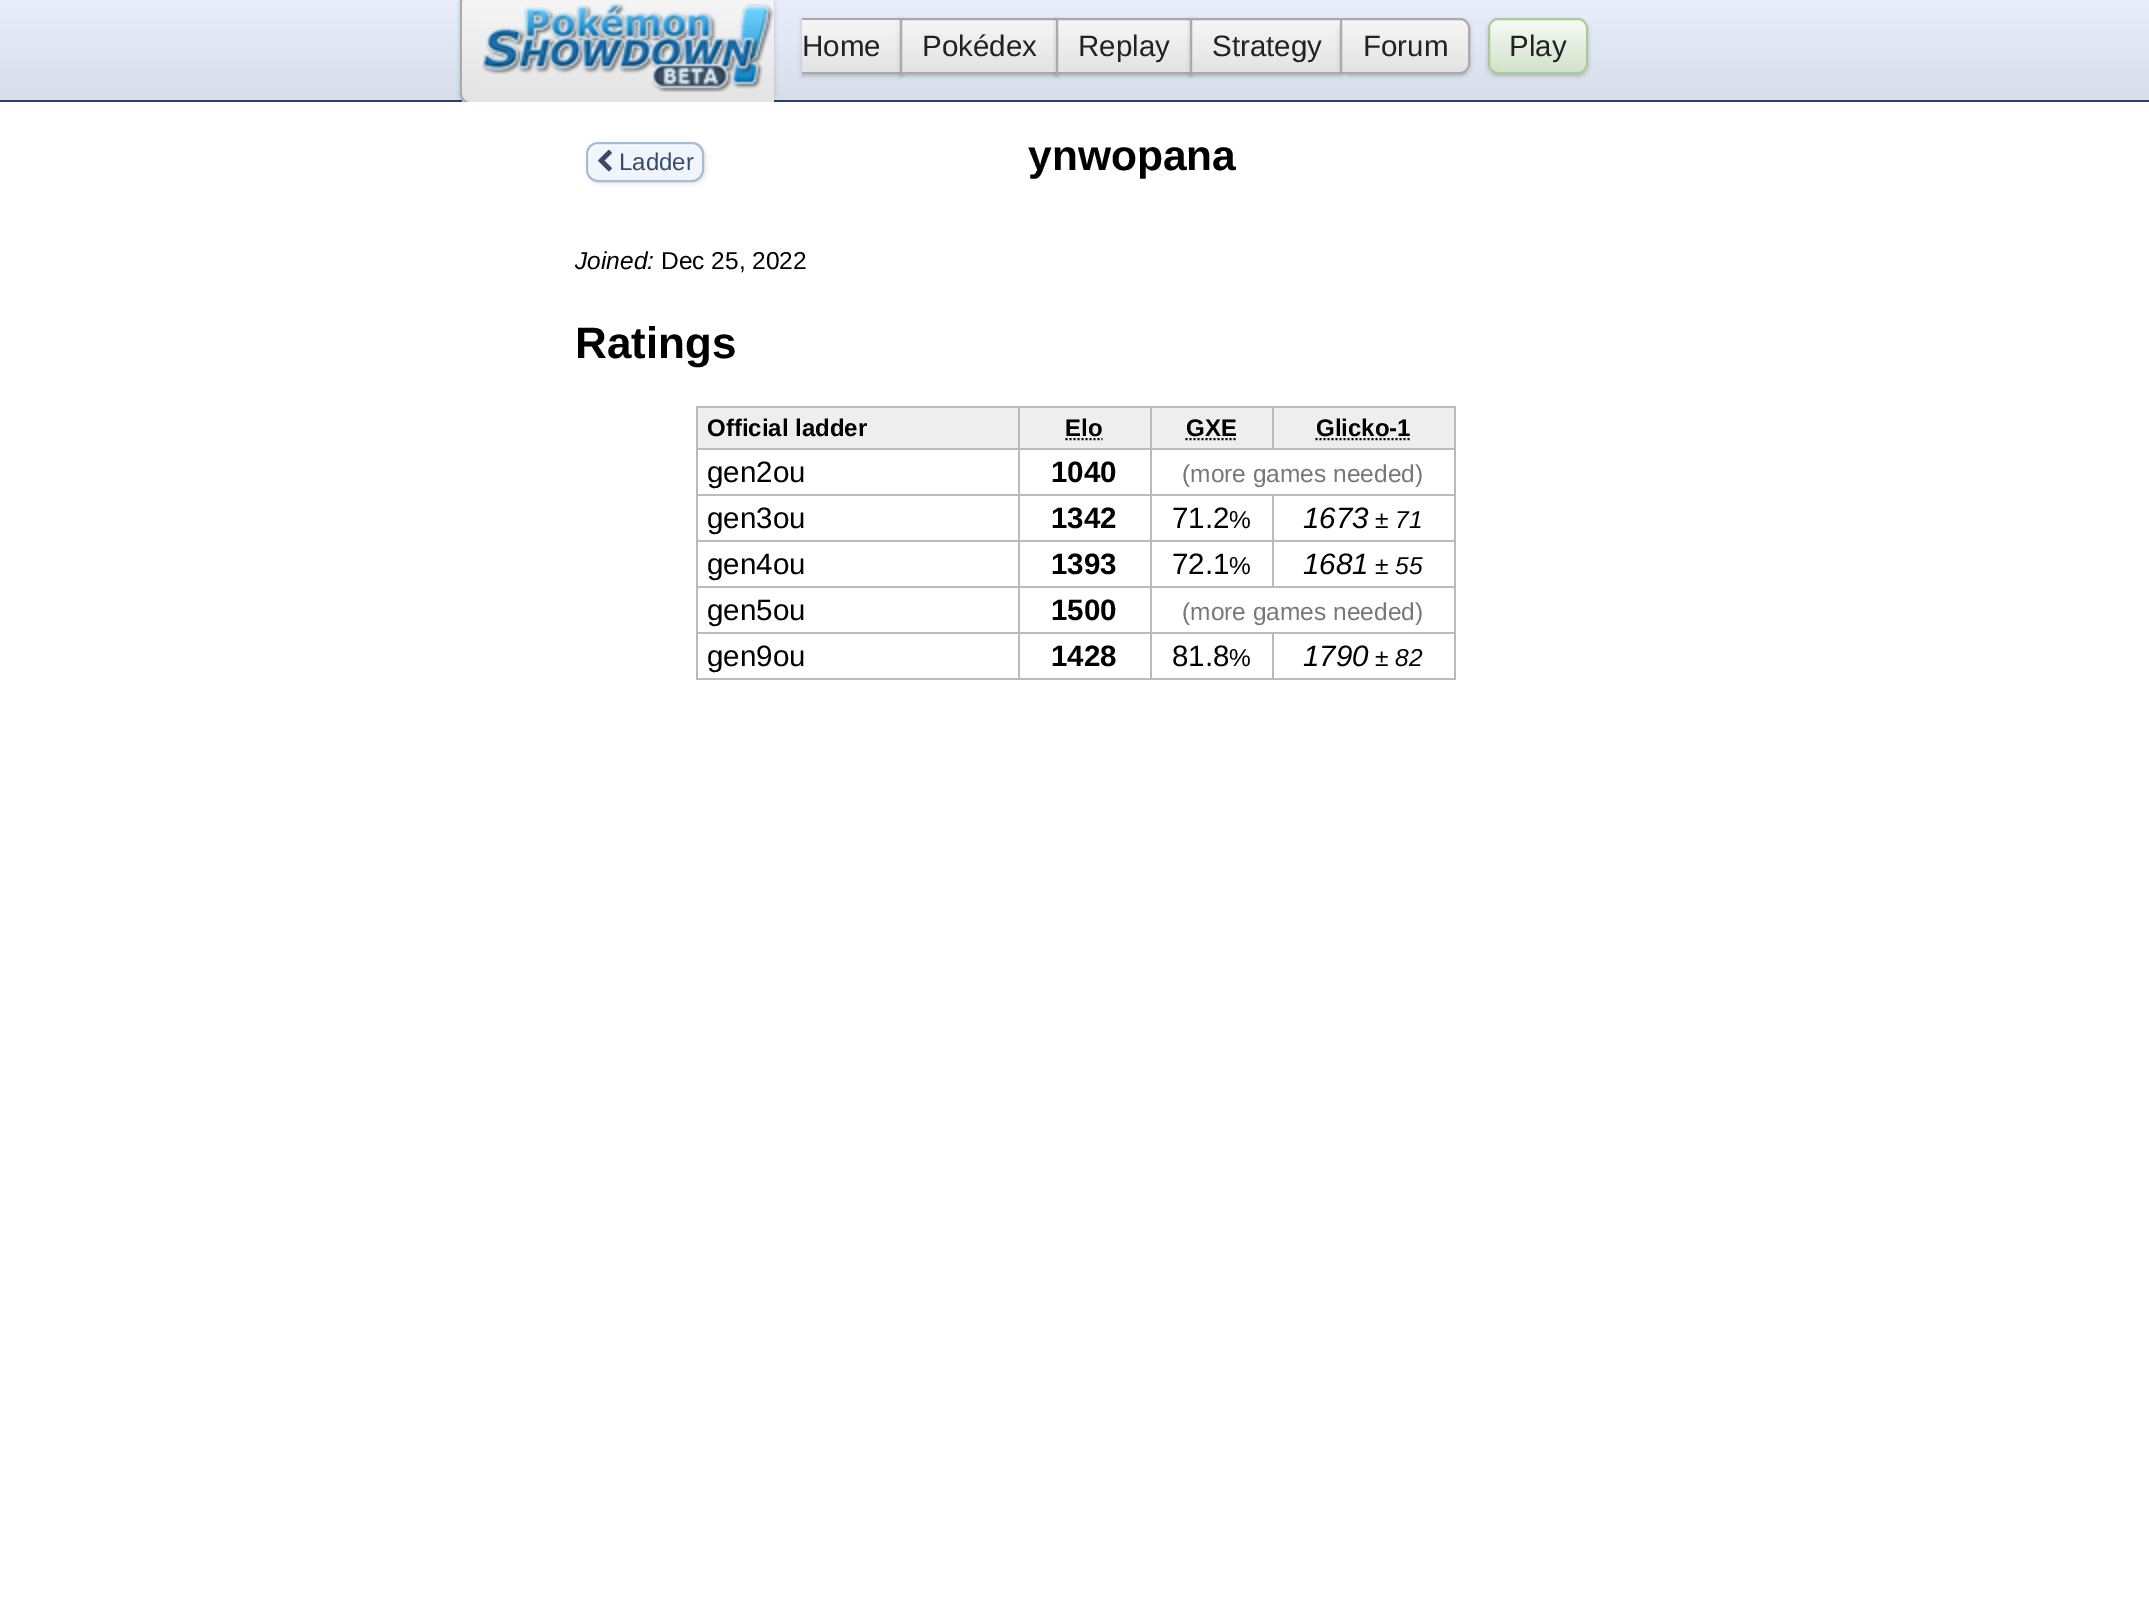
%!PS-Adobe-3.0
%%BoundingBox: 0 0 2149 1611
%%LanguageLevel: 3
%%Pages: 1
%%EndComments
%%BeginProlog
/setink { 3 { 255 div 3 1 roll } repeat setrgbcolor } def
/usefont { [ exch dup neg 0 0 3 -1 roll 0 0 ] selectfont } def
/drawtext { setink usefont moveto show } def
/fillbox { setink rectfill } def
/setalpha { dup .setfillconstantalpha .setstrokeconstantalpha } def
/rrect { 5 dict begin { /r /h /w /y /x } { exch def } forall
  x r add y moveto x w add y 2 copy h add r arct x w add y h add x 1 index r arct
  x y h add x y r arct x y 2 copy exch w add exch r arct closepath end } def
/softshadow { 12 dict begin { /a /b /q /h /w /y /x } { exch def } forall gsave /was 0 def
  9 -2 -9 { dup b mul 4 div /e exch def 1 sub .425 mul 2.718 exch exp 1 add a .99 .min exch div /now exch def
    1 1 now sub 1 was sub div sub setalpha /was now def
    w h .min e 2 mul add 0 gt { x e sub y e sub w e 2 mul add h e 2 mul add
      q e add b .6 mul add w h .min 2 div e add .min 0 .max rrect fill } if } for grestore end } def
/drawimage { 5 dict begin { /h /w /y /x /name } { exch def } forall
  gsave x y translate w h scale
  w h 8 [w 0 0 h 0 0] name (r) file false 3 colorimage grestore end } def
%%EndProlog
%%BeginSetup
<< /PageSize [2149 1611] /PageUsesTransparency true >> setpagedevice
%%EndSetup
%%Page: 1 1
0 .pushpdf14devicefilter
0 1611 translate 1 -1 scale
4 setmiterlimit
0 0 2149 1611 255 255 255 fillbox
gsave 0 0 moveto 2149 0 lineto 2149 100 lineto 0 100 lineto closepath clip newpath
<< /ShadingType 2 /ColorSpace /DeviceRGB /Coords [0 0 0 100] /Extend [true true] /Function << /FunctionType 2 /Domain [0 1] /C0 [0.91 0.933 0.988] /C1 [0.843 0.871 0.918] /N 1 >> >> shfill grestore
0 100 2149 2 42 64 102 fillbox
0 0 0 setink
460 -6 314 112 10 2 0.2 softshadow
gsave
470 -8 moveto 774 -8 lineto 774 104 lineto 470 104 lineto 464.5 104 460 99.5 460 94 curveto 460 2 lineto 460 -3.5 464.5 -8 470 -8 curveto closepath clip newpath
gsave 460 0 moveto 774 0 lineto 774 102 lineto 460 102 lineto closepath clip newpath
<< /ShadingType 2 /ColorSpace /DeviceRGB /Coords [462 -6 462 102] /Extend [true true] /Function << /FunctionType 2 /Domain [0 1] /C0 [0.965 0.965 0.965] /C1 [0.89 0.89 0.89] /N 1 >> >> shfill grestore
grestore
170 170 170 setink
470 -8 moveto 774 -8 lineto 774 104 lineto 470 104 lineto 464 104 460 100 460 94 curveto 460 2 lineto 460 -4 464 -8 470 -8 curveto closepath 470 -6 moveto 774 -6 lineto 774 102 lineto 470 102 lineto 466 102 462 98 462 94 curveto 462 2 lineto 462 -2 466 -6 470 -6 curveto closepath eofill
0 0 0 setink
802 20 100 56 0 2 0.2 softshadow
gsave 802 20 moveto 900 20 lineto 900 72 lineto 802 72 lineto closepath clip newpath
<< /ShadingType 2 /ColorSpace /DeviceRGB /Coords [802 20 802 72] /Extend [true true] /Function << /FunctionType 2 /Domain [0 1] /C0 [0.965 0.965 0.965] /C1 [0.89 0.89 0.89] /N 1 >> >> shfill grestore
802 18 100 2 170 170 170 fillbox
802 72 100 2 170 170 170 fillbox
(assets/img1.rgb) 482 4 292 88 drawimage
(Home) 802 56 /LiberationSans-Regular 29.5 34 34 34 drawtext
0 0 0 setink
900 20 158 56 0 2 0.2 softshadow
gsave 902 20 moveto 1056 20 lineto 1056 72 lineto 902 72 lineto closepath clip newpath
<< /ShadingType 2 /ColorSpace /DeviceRGB /Coords [902 20 902 72] /Extend [true true] /Function << /FunctionType 2 /Domain [0 1] /C0 [0.965 0.965 0.965] /C1 [0.89 0.89 0.89] /N 1 >> >> shfill grestore
170 170 170 setink
2 setlinewidth
901 19 156 54 rectstroke
(Pokédex) 922 56 /LiberationSans-Regular 29.5 34 34 34 drawtext
0 0 0 setink
1056 20 136 56 0 2 0.2 softshadow
gsave 1058 20 moveto 1190 20 lineto 1190 72 lineto 1058 72 lineto closepath clip newpath
<< /ShadingType 2 /ColorSpace /DeviceRGB /Coords [1058 20 1058 72] /Extend [true true] /Function << /FunctionType 2 /Domain [0 1] /C0 [0.965 0.965 0.965] /C1 [0.89 0.89 0.89] /N 1 >> >> shfill grestore
170 170 170 setink
1057 19 134 54 rectstroke
(Replay) 1078 56 /LiberationSans-Regular 29.5 34 34 34 drawtext
0 0 0 setink
1190 20 152 56 0 2 0.2 softshadow
gsave 1192 20 moveto 1340 20 lineto 1340 72 lineto 1192 72 lineto closepath clip newpath
<< /ShadingType 2 /ColorSpace /DeviceRGB /Coords [1192 20 1192 72] /Extend [true true] /Function << /FunctionType 2 /Domain [0 1] /C0 [0.965 0.965 0.965] /C1 [0.89 0.89 0.89] /N 1 >> >> shfill grestore
170 170 170 setink
1191 19 150 54 rectstroke
(Strategy) 1212 56 /LiberationSans-Regular 29.5 34 34 34 drawtext
0 0 0 setink
1340 20 130 56 10 2 0.2 softshadow
gsave
1340 18 moveto 1460 18 lineto 1465.5 18 1470 22.5 1470 28 curveto 1470 64 lineto 1470 69.5 1465.5 74 1460 74 curveto 1340 74 lineto closepath clip newpath
gsave 1342 20 moveto 1470 20 lineto 1470 72 lineto 1342 72 lineto closepath clip newpath
<< /ShadingType 2 /ColorSpace /DeviceRGB /Coords [1342 20 1342 72] /Extend [true true] /Function << /FunctionType 2 /Domain [0 1] /C0 [0.965 0.965 0.965] /C1 [0.89 0.89 0.89] /N 1 >> >> shfill grestore
grestore
170 170 170 setink
1341 19 moveto 1460 19 lineto 1465 19 1469 23 1469 28 curveto 1469 64 lineto 1469 69 1465 73 1460 73 curveto 1341 73 lineto closepath stroke
(Forum) 1363 56 /LiberationSans-Regular 29.5 34 34 34 drawtext
0 0 0 setink
1488 20 100 56 10 2 0.2 softshadow
gsave
1488 18 100 56 10 rrect clip newpath
gsave 1488 20 moveto 1588 20 lineto 1588 72 lineto 1488 72 lineto closepath clip newpath
<< /ShadingType 2 /ColorSpace /DeviceRGB /Coords [1490 20 1490 72] /Extend [true true] /Function << /FunctionType 2 /Domain [0 1] /C0 [0.969 0.98 0.961] /C1 [0.824 0.886 0.792] /N 1 >> >> shfill grestore
grestore
171 201 156 setink
1489 19 98 54 9 rrect stroke
(Play) 1509 56 /LiberationSans-Regular 29.5 34 34 34 drawtext
459 102 316 7 255 255 255 fillbox
0 0 0 setink
588 144 118 40 12 2 0.08 softshadow
240 245 252 setink
586 142 118 40 12 rrect fill
249 251 254 setink
600 146 moveto 694 146 lineto 696 146 698 146 700 147 curveto 698 145 695 144 692 144 curveto 598 144 lineto 592 144 588 148 588 154 curveto 588 170 lineto 588 173 589 176 591 178 curveto 589 174 590 168 590 164 curveto 590 156 589 146 600 146 curveto closepath fill
166 187 212 setink
587 143 116 38 11 rrect stroke
(assets/img2.rgb) 598 149 14 23 drawimage
(Ladder) 619 170 /LiberationSans-Regular 24 58 74 102 drawtext
(ynwopana) 1028 170 /LiberationSans-Bold 42.5 0 0 0 drawtext
(Joined:) 575 269 /LiberationSans-Italic 24.5 0 0 0 drawtext
(Dec 25, 2022) 661 269 /LiberationSans-Regular 24.5 0 0 0 drawtext
(Ratings) 575 358 /LiberationSans-Bold 44 0 0 0 drawtext
696 406 760 2 187 187 187 fillbox
1454 406 2 274 187 187 187 fillbox
696 678 760 2 187 187 187 fillbox
696 406 2 274 187 187 187 fillbox
698 408 320 40 238 238 238 fillbox
(Official ladder) 707 436 /LiberationSans-Bold 24 0 0 0 drawtext
1020 408 130 40 238 238 238 fillbox
1150 448 306 2 187 187 187 fillbox
1272 494 184 2 187 187 187 fillbox
1272 540 184 2 187 187 187 fillbox
1150 586 306 2 187 187 187 fillbox
1272 540 2 48 187 187 187 fillbox
1150 540 124 2 187 187 187 fillbox
1272 494 2 48 187 187 187 fillbox
1150 494 124 2 187 187 187 fillbox
1272 632 184 2 187 187 187 fillbox
1272 632 2 48 187 187 187 fillbox
1150 632 124 2 187 187 187 fillbox
1150 632 2 48 187 187 187 fillbox
1018 632 134 2 187 187 187 fillbox
1150 586 2 48 187 187 187 fillbox
1018 586 134 2 187 187 187 fillbox
1150 540 2 48 187 187 187 fillbox
1018 540 134 2 187 187 187 fillbox
1150 494 2 48 187 187 187 fillbox
1018 494 134 2 187 187 187 fillbox
1150 448 2 48 187 187 187 fillbox
1018 448 134 2 187 187 187 fillbox
1018 632 2 48 187 187 187 fillbox
696 632 324 2 187 187 187 fillbox
1018 586 2 48 187 187 187 fillbox
696 586 324 2 187 187 187 fillbox
1018 540 2 48 187 187 187 fillbox
696 540 324 2 187 187 187 fillbox
1018 494 2 48 187 187 187 fillbox
696 494 324 2 187 187 187 fillbox
1018 448 2 48 187 187 187 fillbox
696 448 324 2 187 187 187 fillbox
1018 406 2 44 187 187 187 fillbox
(Elo) 1065 436 /LiberationSans-Bold 24 0 0 0 drawtext
[2 2] 0 setdash
1065.5 439 moveto 1102.5 439 lineto stroke
1152 408 120 40 238 238 238 fillbox
1150 406 2 44 187 187 187 fillbox
(GXE) 1186 436 /LiberationSans-Bold 24 0 0 0 drawtext
1185.5 439 moveto 1236.5 439 lineto stroke
1274 408 180 40 238 238 238 fillbox
1272 406 2 44 187 187 187 fillbox
(Glicko-1) 1316 436 /LiberationSans-Bold 24 0 0 0 drawtext
1315.5 439 moveto 1410.5 439 lineto stroke
(gen2ou) 707 482 /LiberationSans-Regular 29.5 0 0 0 drawtext
(1040) 1051 482 /LiberationSans-Bold 29.5 0 0 0 drawtext
(\(more games needed\)) 1182 482 /LiberationSans-Regular 24.5 119 119 119 drawtext
(gen3ou) 707 528 /LiberationSans-Regular 29.5 0 0 0 drawtext
(1342) 1051 528 /LiberationSans-Bold 29.5 0 0 0 drawtext
(71.2) 1172 528 /LiberationSans-Regular 29.5 0 0 0 drawtext
(%) 1229 528 /LiberationSans-Regular 24.5 0 0 0 drawtext
(1673) 1303 528 /LiberationSans-Italic 29.5 0 0 0 drawtext
(± 71) 1375 528 /LiberationSans-Italic 24.5 0 0 0 drawtext
(gen4ou) 707 574 /LiberationSans-Regular 29.5 0 0 0 drawtext
(1393) 1051 574 /LiberationSans-Bold 29.5 0 0 0 drawtext
(72.1) 1172 574 /LiberationSans-Regular 29.5 0 0 0 drawtext
(%) 1229 574 /LiberationSans-Regular 24.5 0 0 0 drawtext
(1681) 1303 574 /LiberationSans-Italic 29.5 0 0 0 drawtext
(± 55) 1375 574 /LiberationSans-Italic 24.5 0 0 0 drawtext
(gen5ou) 707 620 /LiberationSans-Regular 29.5 0 0 0 drawtext
(1500) 1051 620 /LiberationSans-Bold 29.5 0 0 0 drawtext
(\(more games needed\)) 1182 620 /LiberationSans-Regular 24.5 119 119 119 drawtext
(gen9ou) 707 666 /LiberationSans-Regular 29.5 0 0 0 drawtext
(1428) 1051 666 /LiberationSans-Bold 29.5 0 0 0 drawtext
(81.8) 1172 666 /LiberationSans-Regular 29.5 0 0 0 drawtext
(%) 1229 666 /LiberationSans-Regular 24.5 0 0 0 drawtext
(1790) 1303 666 /LiberationSans-Italic 29.5 0 0 0 drawtext
(± 82) 1375 666 /LiberationSans-Italic 24.5 0 0 0 drawtext
.poppdf14devicefilter showpage
%%EOF
